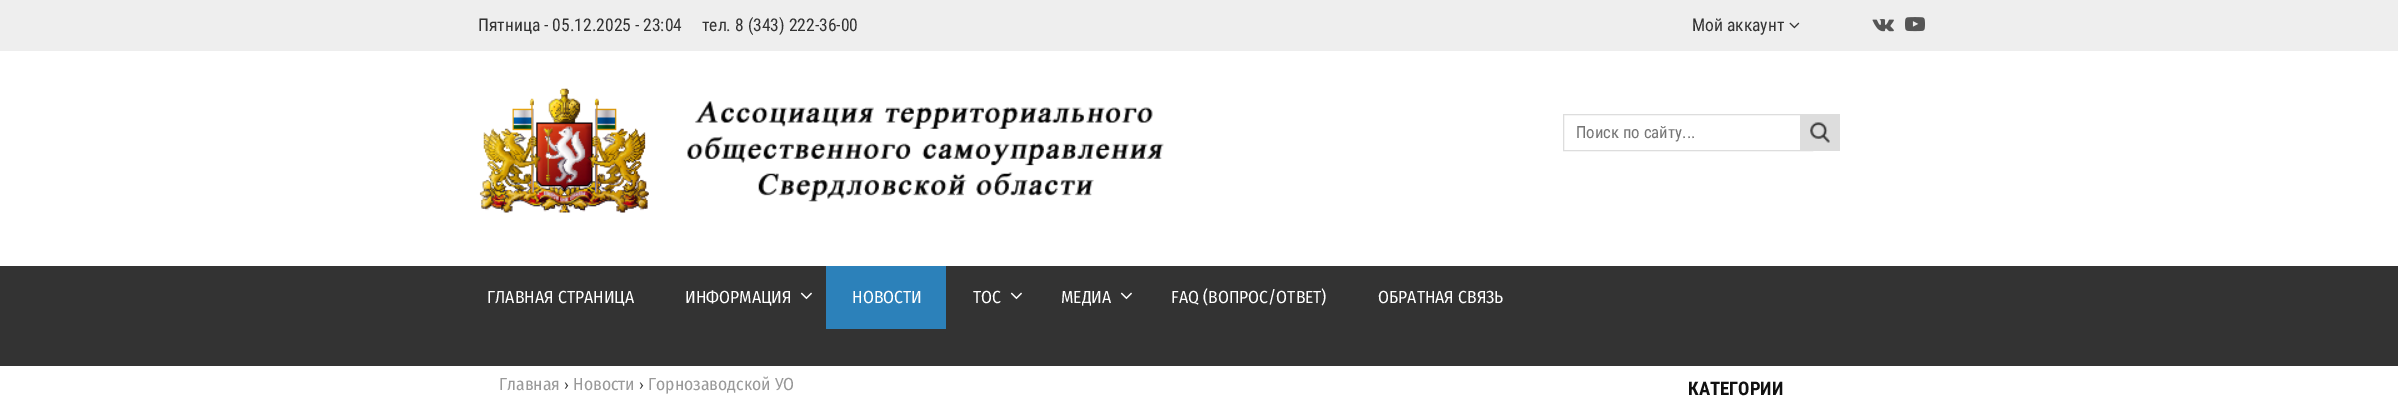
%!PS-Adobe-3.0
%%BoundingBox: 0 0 2398 398
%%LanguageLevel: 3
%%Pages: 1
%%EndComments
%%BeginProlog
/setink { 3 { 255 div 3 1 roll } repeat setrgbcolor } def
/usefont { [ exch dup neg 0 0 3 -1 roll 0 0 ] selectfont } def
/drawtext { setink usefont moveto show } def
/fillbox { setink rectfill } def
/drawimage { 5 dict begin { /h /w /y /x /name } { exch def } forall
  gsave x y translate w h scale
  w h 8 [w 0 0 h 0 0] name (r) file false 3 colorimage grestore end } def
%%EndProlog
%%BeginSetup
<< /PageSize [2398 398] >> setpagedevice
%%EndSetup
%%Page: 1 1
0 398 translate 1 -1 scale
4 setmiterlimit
0 0 2398 398 255 255 255 fillbox
0 0 2398 51 238 238 238 fillbox
(Пятница - 05.12.2025 - 23:04     тел. 8 \(343\) 222-36-00) 478 31 /RobotoCondensed-Regular 17.5 51 51 51 drawtext
(Мой аккаунт) 1692 31 /RobotoCondensed-Regular 17.5 51 51 51 drawtext
(assets/img1.rgb) 1789 22 11 7 drawimage
(assets/img2.rgb) 1872 19 22 13 drawimage
(assets/img3.rgb) 1905 17 20 15 drawimage
(assets/img4.rgb) 479 88 685 125 drawimage
221 221 221 setink
1563.5 114.5 249 36 rectstroke
(Поиск по сайту...) 1576 138 /RobotoCondensed-Regular 16.75 117 117 117 drawtext
1800 114 40 37 221 221 221 fillbox
(assets/img5.rgb) 1810 122 20 21 drawimage
0 266 2398 100 51 51 51 fillbox
(ГЛАВНАЯ СТРАНИЦА) 487 303 /FiraSansCondensed-Regular 17.5 255 255 255 drawtext
(ИНФОРМАЦИЯ) 685 303 /FiraSansCondensed-Regular 17.5 255 255 255 drawtext
(assets/img6.rgb) 800 292 12 8 drawimage
826 266 120 63 44 129 186 fillbox
(НОВОСТИ) 852 303 /FiraSansCondensed-Regular 17.5 255 255 255 drawtext
(ТОС) 973 303 /FiraSansCondensed-Regular 17.5 255 255 255 drawtext
(assets/img6.rgb) 1010 292 12 8 drawimage
(МЕДИА) 1061 303 /FiraSansCondensed-Regular 17.5 255 255 255 drawtext
(assets/img6.rgb) 1120 292 12 8 drawimage
(FAQ \(ВОПРОС/ОТВЕТ\)) 1171 303 /FiraSansCondensed-Regular 17.5 255 255 255 drawtext
(ОБРАТНАЯ СВЯЗЬ) 1378 303 /FiraSansCondensed-Regular 17.5 255 255 255 drawtext
(Главная) 499 390 /FiraSansCondensed-Regular 17.5 153 153 153 drawtext
(›) 564 390 /Roboto-Regular 16 51 51 51 drawtext
(Новости) 573 390 /FiraSansCondensed-Regular 17.5 153 153 153 drawtext
(›) 639 390 /Roboto-Regular 16 51 51 51 drawtext
(Горнозаводской УО) 648 390 /FiraSansCondensed-Regular 17.5 153 153 153 drawtext
(КАТЕГОРИИ) 1688 395 /RobotoCondensed-Bold 18.75 17 17 17 drawtext
showpage
%%EOF
